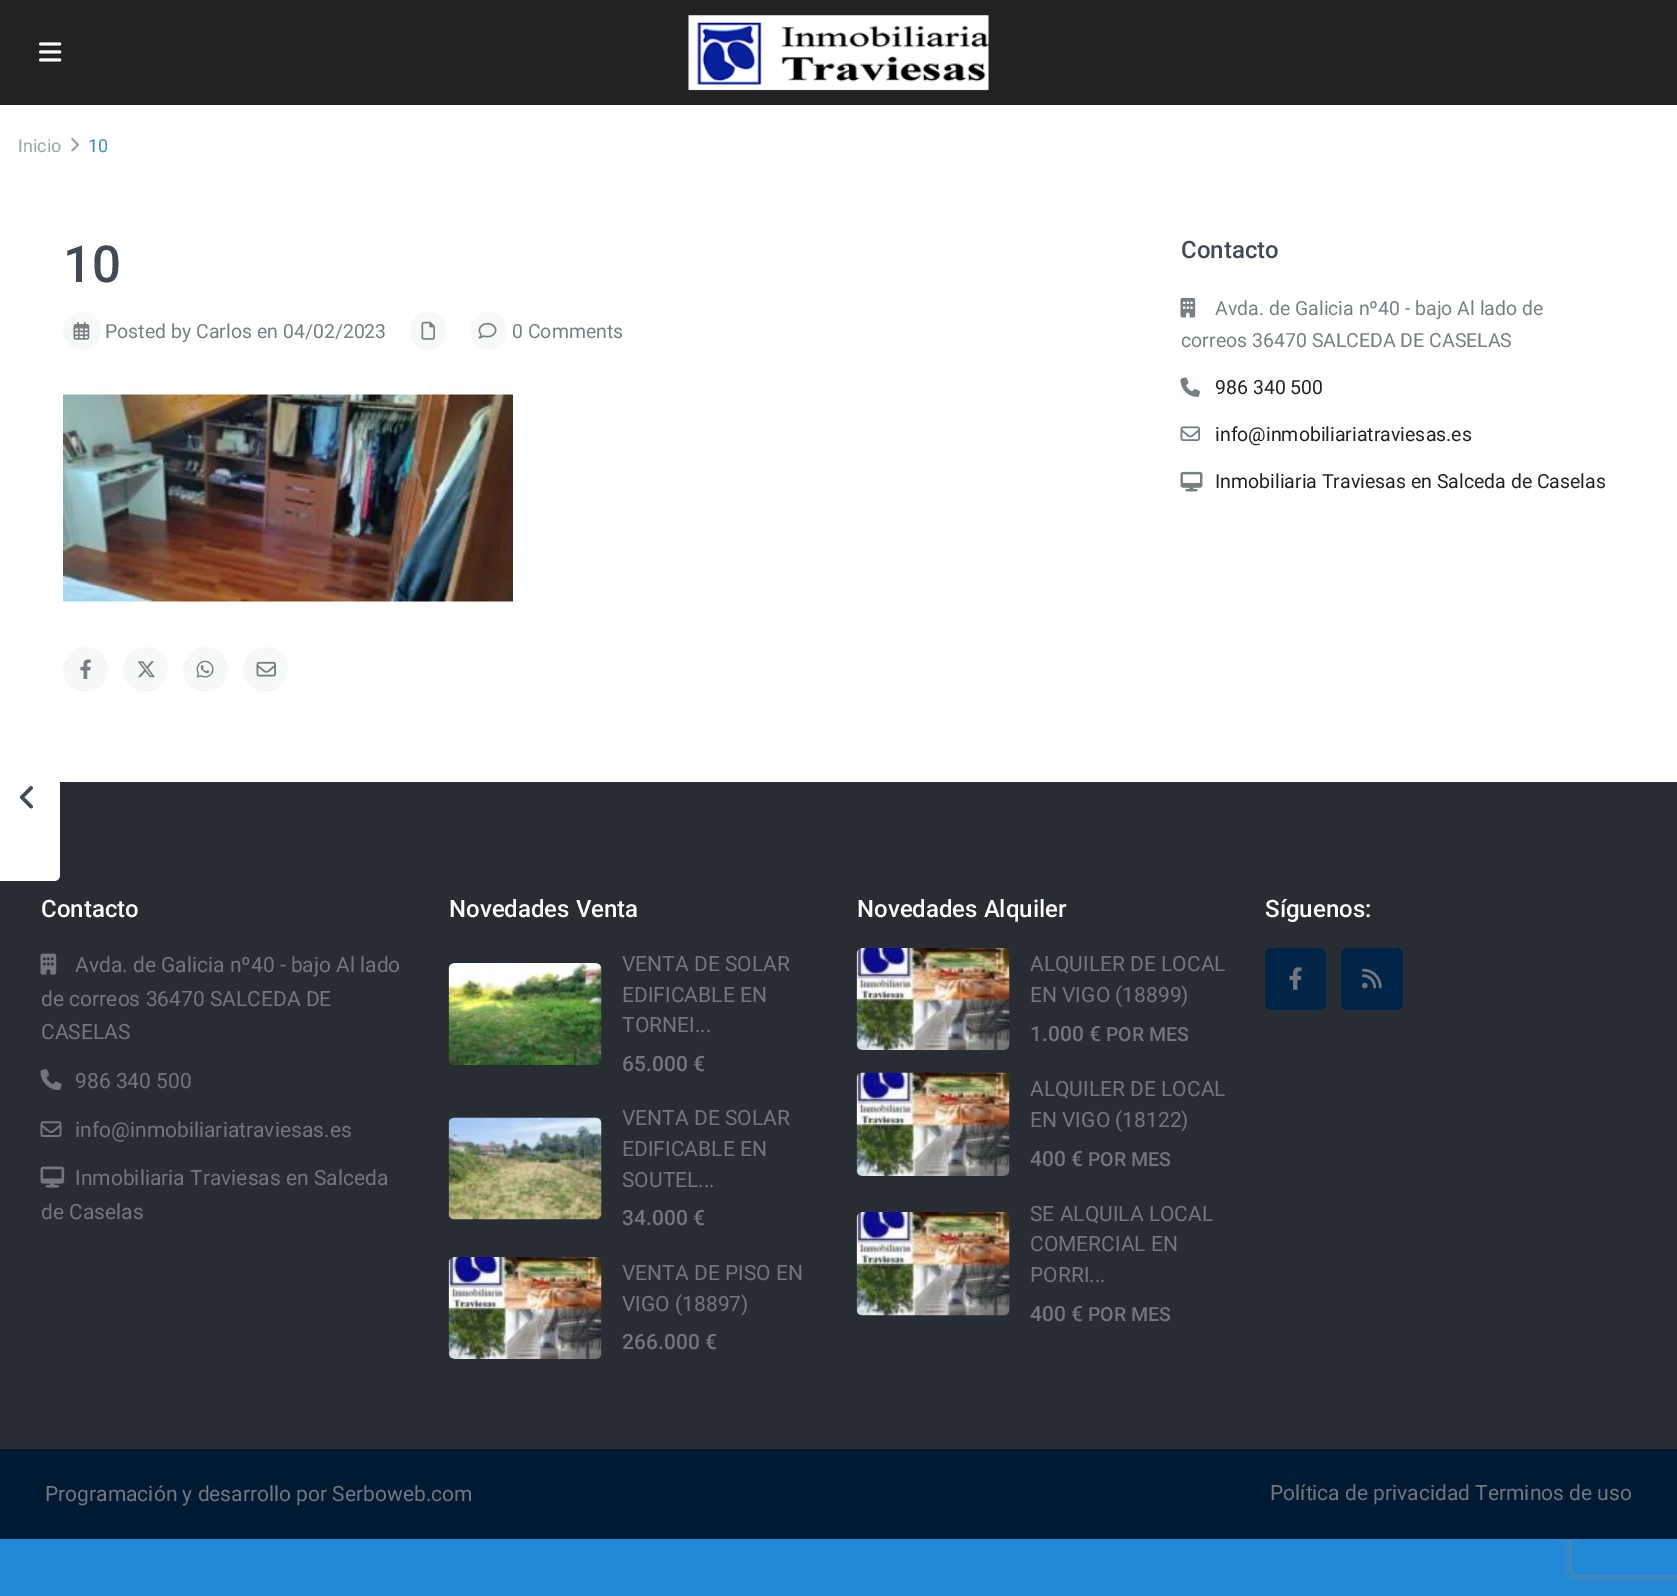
%!PS-Adobe-3.0
%%BoundingBox: 0 0 1677 1596
%%LanguageLevel: 3
%%Pages: 1
%%EndComments
%%BeginProlog
/setink { 3 { 255 div 3 1 roll } repeat setrgbcolor } def
/usefont { [ exch dup neg 0 0 3 -1 roll 0 0 ] selectfont } def
/drawtext { setink usefont moveto show } def
/fillbox { setink rectfill } def
/setalpha { dup .setfillconstantalpha .setstrokeconstantalpha } def
/disc { newpath 0 360 arc closepath } def
/rrect { 5 dict begin { /r /h /w /y /x } { exch def } forall
  x r add y moveto x w add y 2 copy h add r arct x w add y h add x 1 index r arct
  x y h add x y r arct x y 2 copy exch w add exch r arct closepath end } def
/softshadow { 12 dict begin { /a /b /q /h /w /y /x } { exch def } forall gsave /was 0 def
  9 -2 -9 { dup b mul 4 div /e exch def 1 sub .425 mul 2.718 exch exp 1 add a .99 .min exch div /now exch def
    1 1 now sub 1 was sub div sub setalpha /was now def
    w h .min e 2 mul add 0 gt { x e sub y e sub w e 2 mul add h e 2 mul add
      q e add b .6 mul add w h .min 2 div e add .min 0 .max rrect fill } if } for grestore end } def
/drawimage { 5 dict begin { /h /w /y /x /name } { exch def } forall
  gsave x y translate w h scale
  w h 8 [w 0 0 h 0 0] name (r) file false 3 colorimage grestore end } def
%%EndProlog
%%BeginSetup
<< /PageSize [1677 1596] /PageUsesTransparency true >> setpagedevice
%%EndSetup
%%Page: 1 1
0 .pushpdf14devicefilter
0 1596 translate 1 -1 scale
4 setmiterlimit
0 0 1677 1596 34 137 216 fillbox
0 0 1677 105 34 34 34 fillbox
(assets/img1.rgb) 39 42 23 20 drawimage
(assets/img2.rgb) 688 15 301 76 drawimage
0 105 1677 677 255 255 255 fillbox
(Inicio) 18 152 /Roboto-Regular 18 153 163 177 drawtext
(assets/img3.rgb) 71 138 9 14 drawimage
(10) 88 152 /Roboto-Regular 18 60 144 190 drawtext
(10) 63 282 /Roboto-Medium 51 67 74 84 drawtext
247 248 248 setink
82 331 19 disc fill
(assets/img4.rgb) 73 321 17 19 drawimage
(Posted by Carlos en 04/02/2023) 105 338 /Roboto-Regular 19.5 118 128 130 drawtext
247 248 248 setink
410 312 37 38 18.5 rrect fill
(assets/img5.rgb) 421 321 14 19 drawimage
470 312 37 38 18.5 rrect fill
(assets/img6.rgb) 478 322 19 17 drawimage
(0 Comments) 512 338 /Roboto-Regular 19.5 118 128 130 drawtext
(assets/img7.rgb) 63 394 450 208 drawimage
247 248 248 setink
85.5 669.5 22.5 disc fill
(assets/img8.rgb) 80 659 11 20 drawimage
145.5 669.5 22.5 disc fill
(assets/img9.rgb) 137 661 18 17 drawimage
205.5 669.5 22.5 disc fill
(assets/img10.rgb) 196 660 18 18 drawimage
265.5 669.5 22.5 disc fill
(assets/img11.rgb) 256 661 20 16 drawimage
(Contacto) 1181 258 /Roboto-Medium 24 67 74 84 drawtext
(assets/img12.rgb) 1180 297 16 21 drawimage
(Avda. de Galicia nº40 - bajo Al lado de) 1215 315 /Roboto-Regular 19.5 118 128 130 drawtext
(correos 36470 SALCEDA DE CASELAS) 1181 347 /Roboto-Regular 19.5 118 128 130 drawtext
(assets/img13.rgb) 1180 377 20 20 drawimage
(986 340 500) 1215 394 /Roboto-Regular 19.5 34 34 34 drawtext
(assets/img14.rgb) 1180 426 20 15 drawimage
(info@inmobiliariatraviesas.es) 1215 441 /Roboto-Regular 19.5 34 34 34 drawtext
(assets/img15.rgb) 1180 471 23 21 drawimage
(Inmobiliaria Traviesas en Salceda de Caselas) 1215 488 /Roboto-Regular 19.5 34 34 34 drawtext
0 782 1677 667 40 45 51 fillbox
(Contacto) 41 917 /Roboto-Medium 24 255 255 255 drawtext
(assets/img16.rgb) 40 953 17 22 drawimage
(Avda. de Galicia nº40 - bajo Al lado) 75 972 /Roboto-Regular 21 114 119 127 drawtext
(de correos 36470 SALCEDA DE) 41 1006 /Roboto-Regular 21 114 119 127 drawtext
(CASELAS) 41 1039 /Roboto-Regular 21 114 119 127 drawtext
(assets/img17.rgb) 40 1069 22 22 drawimage
(986 340 500) 75 1088 /Roboto-Regular 21 114 119 127 drawtext
(assets/img18.rgb) 40 1121 22 16 drawimage
(info@inmobiliariatraviesas.es) 75 1137 /Roboto-Regular 21 114 119 127 drawtext
(assets/img19.rgb) 40 1166 25 22 drawimage
(Inmobiliaria Traviesas en Salceda) 75 1185 /Roboto-Regular 21 114 119 127 drawtext
(de Caselas) 41 1219 /Roboto-Regular 21 114 119 127 drawtext
(Novedades Venta) 449 917 /Roboto-Medium 24 255 255 255 drawtext
(assets/img20.rgb) 448 963 154 102 drawimage
(VENTA DE SOLAR) 622 971 /Roboto-Regular 21 114 119 127 drawtext
(EDIFICABLE EN) 622 1002 /Roboto-Regular 21 114 119 127 drawtext
(TORNEI...) 622 1032 /Roboto-Regular 21 114 119 127 drawtext
(65.000 €) 622 1071 /Roboto-Medium 21 114 119 127 drawtext
(assets/img21.rgb) 448 1117 154 103 drawimage
(VENTA DE SOLAR) 622 1125 /Roboto-Regular 21 114 119 127 drawtext
(EDIFICABLE EN) 622 1156 /Roboto-Regular 21 114 119 127 drawtext
(SOUTEL...) 622 1187 /Roboto-Regular 21 114 119 127 drawtext
(34.000 €) 622 1225 /Roboto-Medium 21 114 119 127 drawtext
(assets/img22.rgb) 448 1257 154 102 drawimage
(VENTA DE PISO EN) 622 1280 /Roboto-Regular 21 114 119 127 drawtext
(VIGO \(18897\)) 622 1311 /Roboto-Regular 21 114 119 127 drawtext
(266.000 €) 622 1349 /Roboto-Medium 21 114 119 127 drawtext
(Novedades Alquiler) 857 917 /Roboto-Medium 24 255 255 255 drawtext
(assets/img23.rgb) 856 948 154 102 drawimage
(ALQUILER DE LOCAL) 1030 971 /Roboto-Regular 21 114 119 127 drawtext
(EN VIGO \(18899\)) 1030 1002 /Roboto-Regular 21 114 119 127 drawtext
(1.000 €) 1030 1041 /Roboto-Medium 21 114 119 127 drawtext
(POR MES) 1106 1041 /Roboto-Medium 19.5 114 119 127 drawtext
(assets/img24.rgb) 856 1072 154 104 drawimage
(ALQUILER DE LOCAL) 1030 1096 /Roboto-Regular 21 114 119 127 drawtext
(EN VIGO \(18122\)) 1030 1127 /Roboto-Regular 21 114 119 127 drawtext
(400 €) 1030 1166 /Roboto-Medium 21 114 119 127 drawtext
(POR MES) 1088 1166 /Roboto-Medium 19.5 114 119 127 drawtext
(assets/img25.rgb) 856 1212 154 104 drawimage
(SE ALQUILA LOCAL) 1030 1221 /Roboto-Regular 21 114 119 127 drawtext
(COMERCIAL EN) 1030 1251 /Roboto-Regular 21 114 119 127 drawtext
(PORRI...) 1030 1282 /Roboto-Regular 21 114 119 127 drawtext
(400 €) 1030 1321 /Roboto-Medium 21 114 119 127 drawtext
(POR MES) 1088 1321 /Roboto-Medium 19.5 114 119 127 drawtext
(Síguenos:) 1265 917 /Roboto-Medium 24 255 255 255 drawtext
0 37 71 setink
1265 948 61 62 6 rrect fill
(assets/img26.rgb) 1289 967 13 23 drawimage
1341 948 62 62 6 rrect fill
(assets/img27.rgb) 1362 968 20 21 drawimage
gsave
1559 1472 moveto 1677 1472 lineto 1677 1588 lineto 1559 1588 lineto closepath 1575 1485 moveto 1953 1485 lineto 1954.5 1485 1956 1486.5 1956 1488 curveto 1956 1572 lineto 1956 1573.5 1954.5 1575 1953 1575 curveto 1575 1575 lineto 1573.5 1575 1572 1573.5 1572 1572 curveto 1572 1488 lineto 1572 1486.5 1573.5 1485 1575 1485 curveto closepath eoclip newpath
128 128 128 setink
1572 1485 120 90 3 4 1 softshadow
grestore
0 1449 1677 90 0 26 51 fillbox
(Programación y desarrollo por Serboweb.com) 45 1501 /Roboto-Regular 21 114 119 127 drawtext
(Política de privacidad Terminos de uso) 1270 1500 /Roboto-Regular 21 114 119 127 drawtext
255 255 255 setink
-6 716 moveto 54 716 lineto 57.5 716 60 718.5 60 722 curveto 60 875 lineto 60 878.5 57.5 881 54 881 curveto -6 881 lineto closepath fill
(assets/img28.rgb) 19 786 14 23 drawimage
.poppdf14devicefilter showpage
%%EOF
